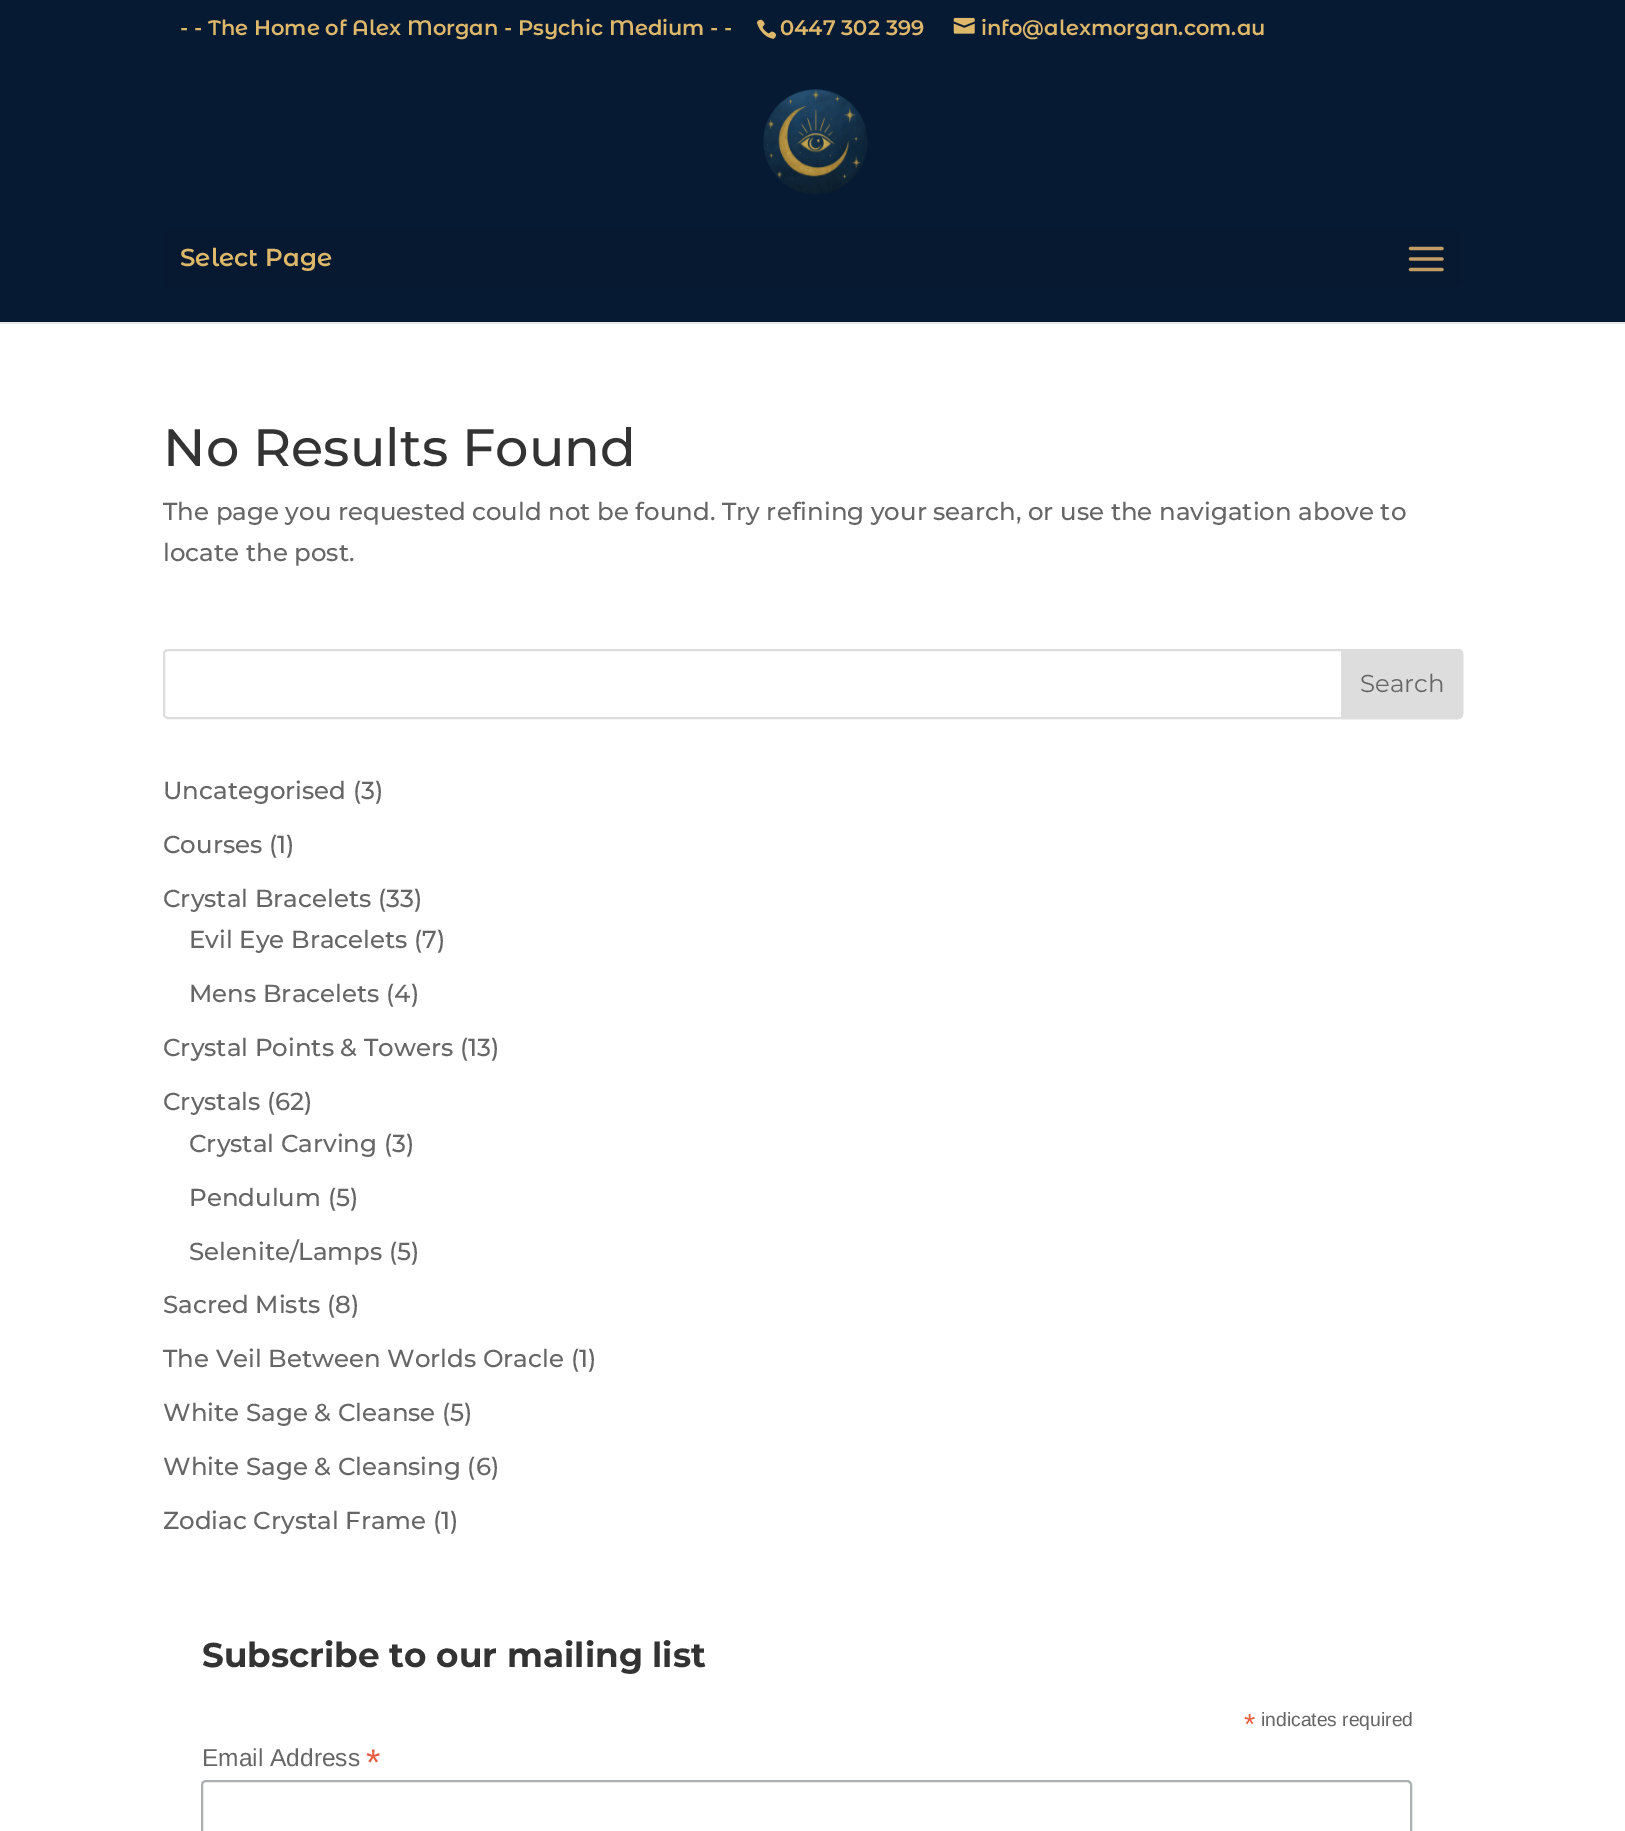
%!PS-Adobe-3.0
%%BoundingBox: 0 0 1625 1831
%%LanguageLevel: 3
%%Pages: 1
%%EndComments
%%BeginProlog
/setink { 3 { 255 div 3 1 roll } repeat setrgbcolor } def
/usefont { [ exch dup neg 0 0 3 -1 roll 0 0 ] selectfont } def
/drawtext { setink usefont moveto show } def
/fillbox { setink rectfill } def
/rrect { 5 dict begin { /r /h /w /y /x } { exch def } forall
  x r add y moveto x w add y 2 copy h add r arct x w add y h add x 1 index r arct
  x y h add x y r arct x y 2 copy exch w add exch r arct closepath end } def
/drawimage { 5 dict begin { /h /w /y /x /name } { exch def } forall
  gsave x y translate w h scale
  w h 8 [w 0 0 h 0 0] name (r) file false 3 colorimage grestore end } def
%%EndProlog
%%BeginSetup
<< /PageSize [1625 1831] >> setpagedevice
%%EndSetup
%%Page: 1 1
0 1831 translate 1 -1 scale
4 setmiterlimit
0 0 1625 1831 255 255 255 fillbox
0 0 1625 322 7 26 51 fillbox
(- - The Home of Alex Morgan - Psychic Medium - -) 180 35 /MontserratAlternates-SemiBold 21 222 184 106 drawtext
(assets/img1.rgb) 756 19 21 20 drawimage
(0447 302 399) 780 35 /MontserratAlternates-SemiBold 21 222 184 106 drawtext
(assets/img2.rgb) 953 17 22 17 drawimage
(info@alexmorgan.com.au) 981 35 /MontserratAlternates-SemiBold 21 222 184 106 drawtext
230 230 230 setink
0 322 moveto 0 324 lineto 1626 324 lineto 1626 56 lineto 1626 322 lineto closepath fill
(assets/img3.rgb) 763 89 105 105 drawimage
7 25 48 setink
163 229 1300 58 9 rrect fill
(Select Page) 180 266 /MontserratAlternates-SemiBold 24.5 222 184 106 drawtext
(assets/img4.rgb) 1408 246 36 26 drawimage
(No Results Found) 163 466 /Montserrat-Medium 52.5 51 51 51 drawtext
(The page you requested could not be found. Try refining your search, or use the navigation above to) 163 520 /Montserrat-Medium 24.5 102 102 102 drawtext
(locate the post.) 163 561 /Montserrat-Medium 24.5 102 102 102 drawtext
221 221 221 setink
2 setlinewidth
164 650 1298 68 4 rrect stroke
1342 650 moveto 1458 650 lineto 1460 650 1462 652 1462 654 curveto 1462 714 lineto 1462 716 1460 718 1458 718 curveto 1342 718 lineto closepath gsave fill grestore
stroke
(Search) 1360 692 /Montserrat-Regular 24.5 102 102 102 drawtext
(Uncategorised \(3\)) 163 799 /Montserrat-Medium 24.5 102 102 102 drawtext
(Courses \(1\)) 163 853 /Montserrat-Medium 24.5 102 102 102 drawtext
(Crystal Bracelets \(33\)) 163 907 /Montserrat-Medium 24.5 102 102 102 drawtext
(Evil Eye Bracelets \(7\)) 189 948 /Montserrat-Medium 24.5 102 102 102 drawtext
(Mens Bracelets \(4\)) 189 1002 /Montserrat-Medium 24.5 102 102 102 drawtext
(Crystal Points & Towers \(13\)) 163 1056 /Montserrat-Medium 24.5 102 102 102 drawtext
(Crystals \(62\)) 163 1110 /Montserrat-Medium 24.5 102 102 102 drawtext
(Crystal Carving \(3\)) 189 1152 /Montserrat-Medium 24.5 102 102 102 drawtext
(Pendulum \(5\)) 189 1206 /Montserrat-Medium 24.5 102 102 102 drawtext
(Selenite/Lamps \(5\)) 189 1260 /Montserrat-Medium 24.5 102 102 102 drawtext
(Sacred Mists \(8\)) 163 1313 /Montserrat-Medium 24.5 102 102 102 drawtext
(The Veil Between Worlds Oracle \(1\)) 163 1367 /Montserrat-Medium 24.5 102 102 102 drawtext
(White Sage & Cleanse \(5\)) 163 1421 /Montserrat-Medium 24.5 102 102 102 drawtext
(White Sage & Cleansing \(6\)) 163 1475 /Montserrat-Medium 24.5 102 102 102 drawtext
(Zodiac Crystal Frame \(1\)) 163 1529 /Montserrat-Medium 24.5 102 102 102 drawtext
(Subscribe to our mailing list) 202 1667 /Montserrat-Bold 34.25 51 51 51 drawtext
(*) 1244 1734 /LiberationSans-Regular 29 232 92 65 drawtext
(indicates required) 1261 1726 /LiberationSans-Regular 19.25 102 102 102 drawtext
(Email Address) 202 1766 /LiberationSans-Regular 24.5 102 102 102 drawtext
(*) 366 1775 /LiberationSans-Regular 37 232 92 65 drawtext
171 176 178 setink
202 1781 1209 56 4 rrect stroke
showpage
%%EOF
